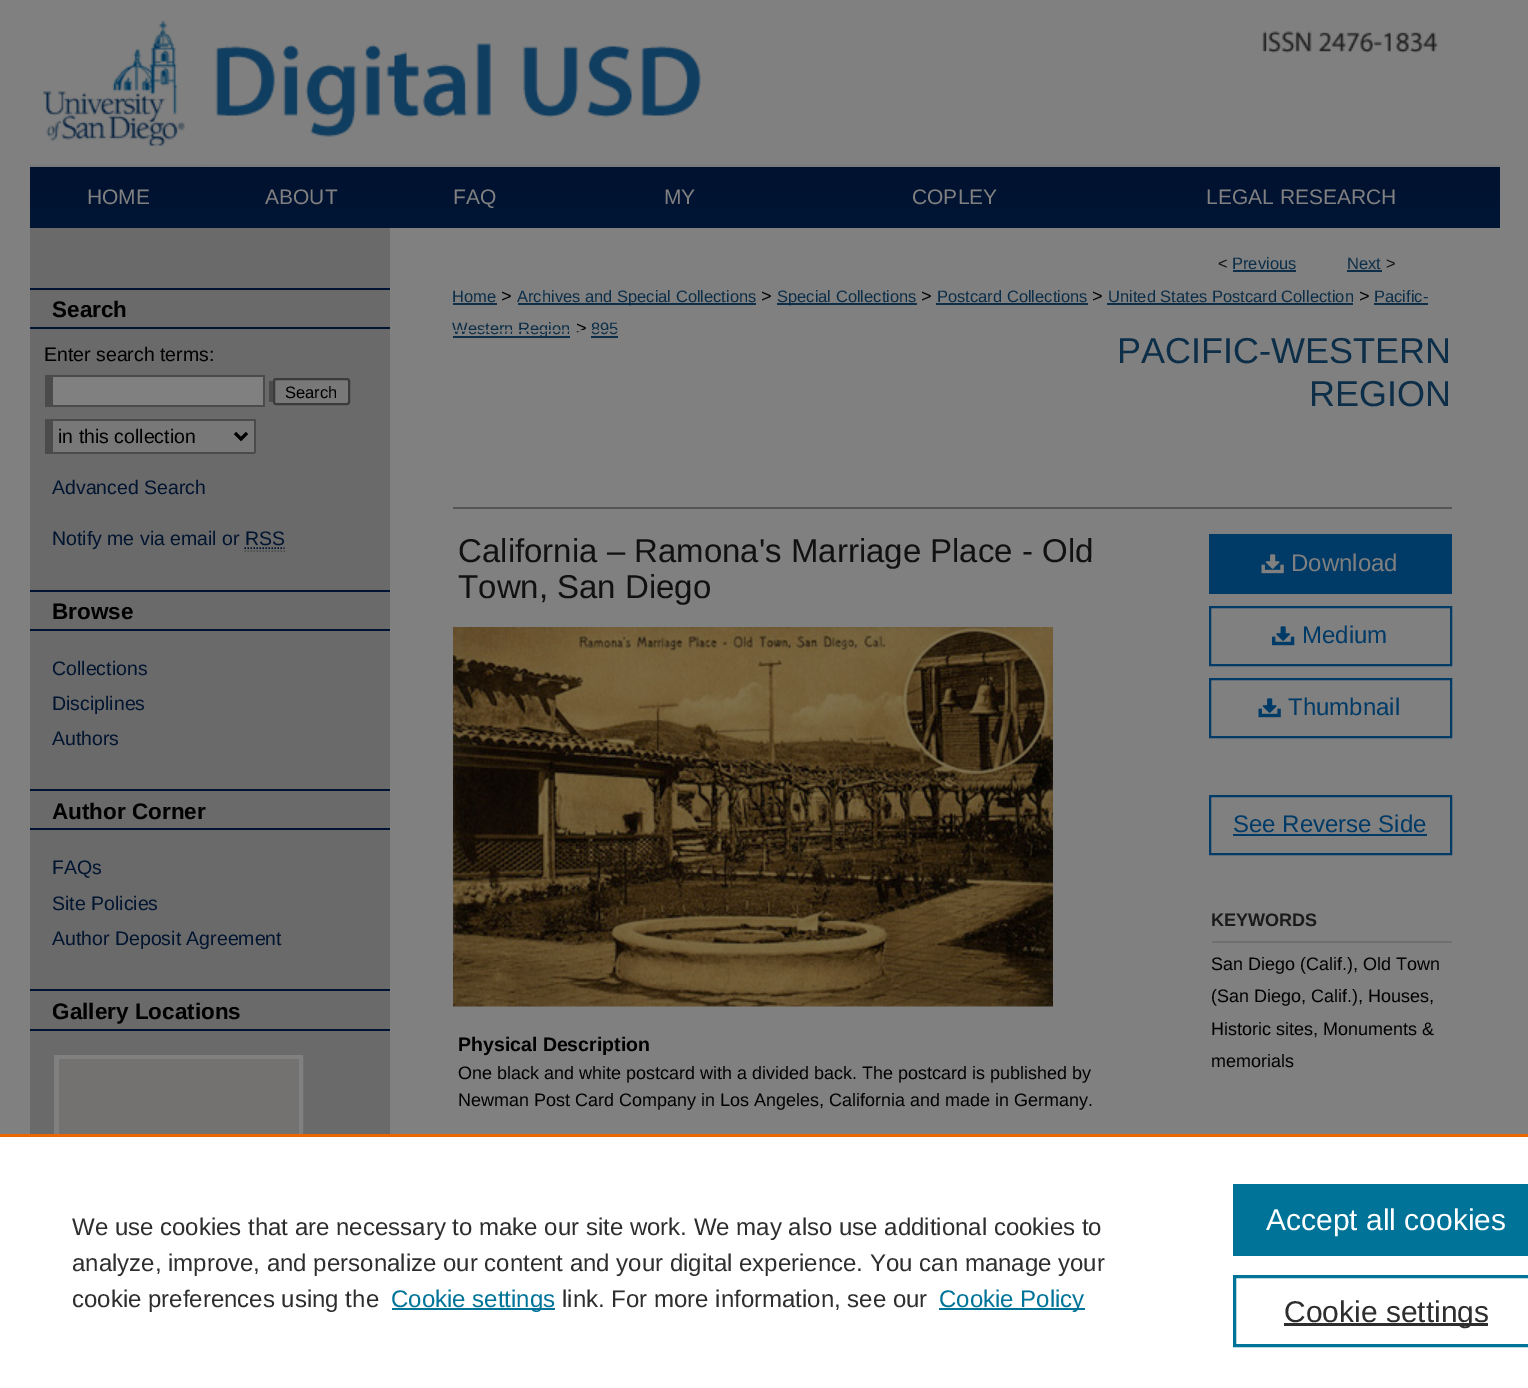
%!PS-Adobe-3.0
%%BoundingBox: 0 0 1528 1388
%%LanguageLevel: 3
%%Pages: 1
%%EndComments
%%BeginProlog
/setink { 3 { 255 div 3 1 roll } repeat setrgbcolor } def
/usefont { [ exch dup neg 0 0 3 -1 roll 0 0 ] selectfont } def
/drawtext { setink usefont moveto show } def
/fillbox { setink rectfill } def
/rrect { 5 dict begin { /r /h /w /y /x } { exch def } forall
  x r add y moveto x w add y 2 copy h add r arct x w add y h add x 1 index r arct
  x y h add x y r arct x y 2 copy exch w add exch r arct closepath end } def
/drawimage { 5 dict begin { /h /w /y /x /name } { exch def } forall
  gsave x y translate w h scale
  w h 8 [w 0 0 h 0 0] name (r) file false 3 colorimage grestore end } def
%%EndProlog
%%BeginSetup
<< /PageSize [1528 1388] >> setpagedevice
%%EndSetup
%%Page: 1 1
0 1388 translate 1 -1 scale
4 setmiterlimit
0 0 1528 1388 128 128 128 fillbox
(assets/img2.rgb) 30 31 1470 136 drawimage
(assets/img1.rgb) 30 20 171 147 drawimage
(assets/img3.rgb) 30 167 1470 61 drawimage
(HOME) 87 204 /LiberationSans-Regular 21 128 128 128 drawtext
(ABOUT) 265 204 /LiberationSans-Regular 21 128 128 128 drawtext
(FAQ) 453 204 /LiberationSans-Regular 21 128 128 128 drawtext
(MY) 664 204 /LiberationSans-Regular 21 128 128 128 drawtext
(COPLEY) 912 204 /LiberationSans-Regular 21 128 128 128 drawtext
(LEGAL RESEARCH) 1206 204 /LiberationSans-Regular 21 128 128 128 drawtext
30 228 360 906 106 106 106 fillbox
30 288 360 2 0 19 50 fillbox
30 327 360 2 0 19 50 fillbox
(Search) 52 317 /LiberationSans-Bold 22.5 0 0 0 drawtext
(Enter search terms:) 44 361 /LiberationSans-Regular 19.5 0 0 0 drawtext
45 375 220 32 75 75 75 fillbox
269 381 4 21 75 75 75 fillbox
53 377 210 28 128 128 128 fillbox
120 120 120 setink
274 379 75 25 2 rrect gsave fill grestore
59 59 59 setink
2 setlinewidth
stroke
(Search) 285 398 /LiberationSans-Regular 16.5 0 0 0 drawtext
53 421 201 31 120 120 120 fillbox
45 419 210 2 75 75 75 fillbox
254 419 2 34 75 75 75 fillbox
45 452 210 2 75 75 75 fillbox
45 419 8 34 75 75 75 fillbox
0 0 0 setink
3 setlinewidth
235 433 moveto 241 439 lineto 247 433 lineto stroke
(in this collection) 58 443 /LiberationSans-Regular 19.5 0 0 0 drawtext
(Advanced Search) 52 494 /LiberationSans-Regular 19.5 1 20 48 drawtext
(Notify me via email or RSS) 52 545 /LiberationSans-Regular 19.5 1 20 48 drawtext
1.5 setlinewidth
[1.5 1.5] 0 setdash
244.5 548 moveto 284.5 548 lineto stroke
77 77 77 setink
244.5 551 moveto 285 551 lineto stroke
30 590 360 2 0 19 50 fillbox
30 629 360 2 0 19 50 fillbox
(Browse) 52 619 /LiberationSans-Bold 22.5 0 0 0 drawtext
(Collections) 52 675 /LiberationSans-Regular 19.5 1 20 48 drawtext
(Disciplines) 52 710 /LiberationSans-Regular 19.5 1 20 48 drawtext
(Authors) 52 745 /LiberationSans-Regular 19.5 1 20 48 drawtext
30 789 360 2 0 19 50 fillbox
30 828 360 2 0 19 50 fillbox
(Author Corner) 52 819 /LiberationSans-Bold 22.5 0 0 0 drawtext
(FAQs) 52 874 /LiberationSans-Regular 19.5 1 20 48 drawtext
(Site Policies) 52 910 /LiberationSans-Regular 19.5 1 20 48 drawtext
(Author Deposit Agreement) 52 945 /LiberationSans-Regular 19.5 1 20 48 drawtext
30 989 360 2 0 19 50 fillbox
30 1029 360 2 0 19 50 fillbox
(Gallery Locations) 52 1019 /LiberationSans-Bold 22.5 0 0 0 drawtext
128 128 128 setink
5 setlinewidth
[] 0 setdash
56.5 1057.5 244 244 rectstroke
59 1059 240 75 115 114 112 fillbox
(<) 1218 269 /LiberationSans-Regular 16.5 17 17 17 drawtext
(Previous) 1232 269 /LiberationSans-Regular 16.5 12 46 72 drawtext
1233 270 63 2 12 46 72 fillbox
(Next) 1347 269 /LiberationSans-Regular 16.5 12 46 72 drawtext
1347 270 35 2 12 46 72 fillbox
(>) 1386 269 /LiberationSans-Regular 16.5 17 17 17 drawtext
(Home) 452 302 /LiberationSans-Regular 16.5 12 46 72 drawtext
453 303 44 2 12 46 72 fillbox
(>) 501 302 /LiberationSans-Regular 18 0 0 0 drawtext
518 303 238 2 12 46 72 fillbox
(Archives and Special Collections) 517 302 /LiberationSans-Regular 16.5 12 46 72 drawtext
(>) 761 302 /LiberationSans-Regular 18 0 0 0 drawtext
777 303 140 2 12 46 72 fillbox
(Special Collections) 777 302 /LiberationSans-Regular 16.5 12 46 72 drawtext
(>) 921 302 /LiberationSans-Regular 18 0 0 0 drawtext
(Postcard Collections) 937 302 /LiberationSans-Regular 16.5 12 46 72 drawtext
936 303 152 2 12 46 72 fillbox
(>) 1092 302 /LiberationSans-Regular 18 0 0 0 drawtext
(United States Postcard Collection) 1108 302 /LiberationSans-Regular 16.5 12 46 72 drawtext
1107 303 246 2 12 46 72 fillbox
(>) 1359 302 /LiberationSans-Regular 18 0 0 0 drawtext
(Pacific-) 1374 302 /LiberationSans-Regular 16.5 12 46 72 drawtext
1374 303 54 2 12 46 72 fillbox
453 336 117 2 12 46 72 fillbox
(Western Region) 452 334 /LiberationSans-Regular 16.5 12 46 72 drawtext
(>) 576 334 /LiberationSans-Regular 18 0 0 0 drawtext
(895) 591 334 /LiberationSans-Regular 16.5 12 46 72 drawtext
591 336 27 2 12 46 72 fillbox
(assets/img4.rgb) 454 330 164 2 drawimage
(PACIFIC-WESTERN) 1117 363 /LiberationSans-Regular 36 12 46 72 drawtext
(REGION) 1309 406 /LiberationSans-Regular 36 12 46 72 drawtext
453 507 999 2 85 85 85 fillbox
(California – Ramona's Marriage Place - Old) 458 562 /LiberationSans-Regular 33 17 17 17 drawtext
(Town, San Diego) 458 598 /LiberationSans-Regular 33 17 17 17 drawtext
(assets/img5.rgb) 453 627 600 380 drawimage
(Physical Description) 458 1051 /LiberationSans-Bold 19.5 0 0 0 drawtext
(One black and white postcard with a divided back. The postcard is published by) 458 1079 /LiberationSans-Regular 18 0 0 0 drawtext
(Newman Post Card Company in Los Angeles, California and made in Germany.) 458 1106 /LiberationSans-Regular 18 0 0 0 drawtext
1209 534 243 60 0 58 102 fillbox
(assets/img6.rgb) 1261 554 23 20 drawimage
(Download) 1291 571 /LiberationSans-Regular 24 128 128 128 drawtext
0 58 102 setink
2 setlinewidth
1210 607 241 58 rectstroke
(assets/img7.rgb) 1272 626 23 20 drawimage
(Medium) 1302 643 /LiberationSans-Regular 24 0 58 102 drawtext
1210 679 241 58 rectstroke
(assets/img8.rgb) 1258 698 23 20 drawimage
(Thumbnail) 1288 715 /LiberationSans-Regular 24 0 58 102 drawtext
1210 796 241 58 rectstroke
(See Reverse Side) 1233 832 /LiberationSans-Regular 24 0 58 102 drawtext
1233 834 194 2 0 58 102 fillbox
1212 941 240 2 111 111 111 fillbox
(KEYWORDS) 1211 926 /LiberationSans-Bold 18 26 26 26 drawtext
(San Diego \(Calif.\), Old Town) 1211 970 /LiberationSans-Regular 18 0 0 0 drawtext
(\(San Diego, Calif.\), Houses,) 1211 1002 /LiberationSans-Regular 18 0 0 0 drawtext
(Historic sites, Monuments &) 1211 1035 /LiberationSans-Regular 18 0 0 0 drawtext
(memorials) 1211 1067 /LiberationSans-Regular 18 0 0 0 drawtext
0 1137 1528 251 255 255 255 fillbox
0 1134 1528 3 235 101 0 fillbox
(We use cookies that are necessary to make our site work. We may also use additional cookies to) 72 1235 /LiberationSans-Regular 24 46 46 46 drawtext
(analyze, improve, and personalize our content and your digital experience. You can manage your) 72 1271 /LiberationSans-Regular 24 46 46 46 drawtext
(cookie preferences using the) 72 1307 /LiberationSans-Regular 24 46 46 46 drawtext
392 1308 163 2 0 115 152 fillbox
(Cookie settings) 391 1307 /LiberationSans-Regular 24 0 115 152 drawtext
(link. For more information, see our) 562 1307 /LiberationSans-Regular 24 46 46 46 drawtext
939 1308 146 2 0 115 152 fillbox
(Cookie Policy) 939 1307 /LiberationSans-Regular 24 0 115 152 drawtext
1233 1184 295 72 0 115 152 fillbox
(Accept all cookies) 1266 1230 /LiberationSans-Regular 30 255 255 255 drawtext
0 115 152 setink
3 setlinewidth
1234.5 1276.5 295 69 rectstroke
1284 1323 204 3 46 46 46 fillbox
(Cookie settings) 1284 1322 /LiberationSans-Regular 30 46 46 46 drawtext
showpage
%%EOF
